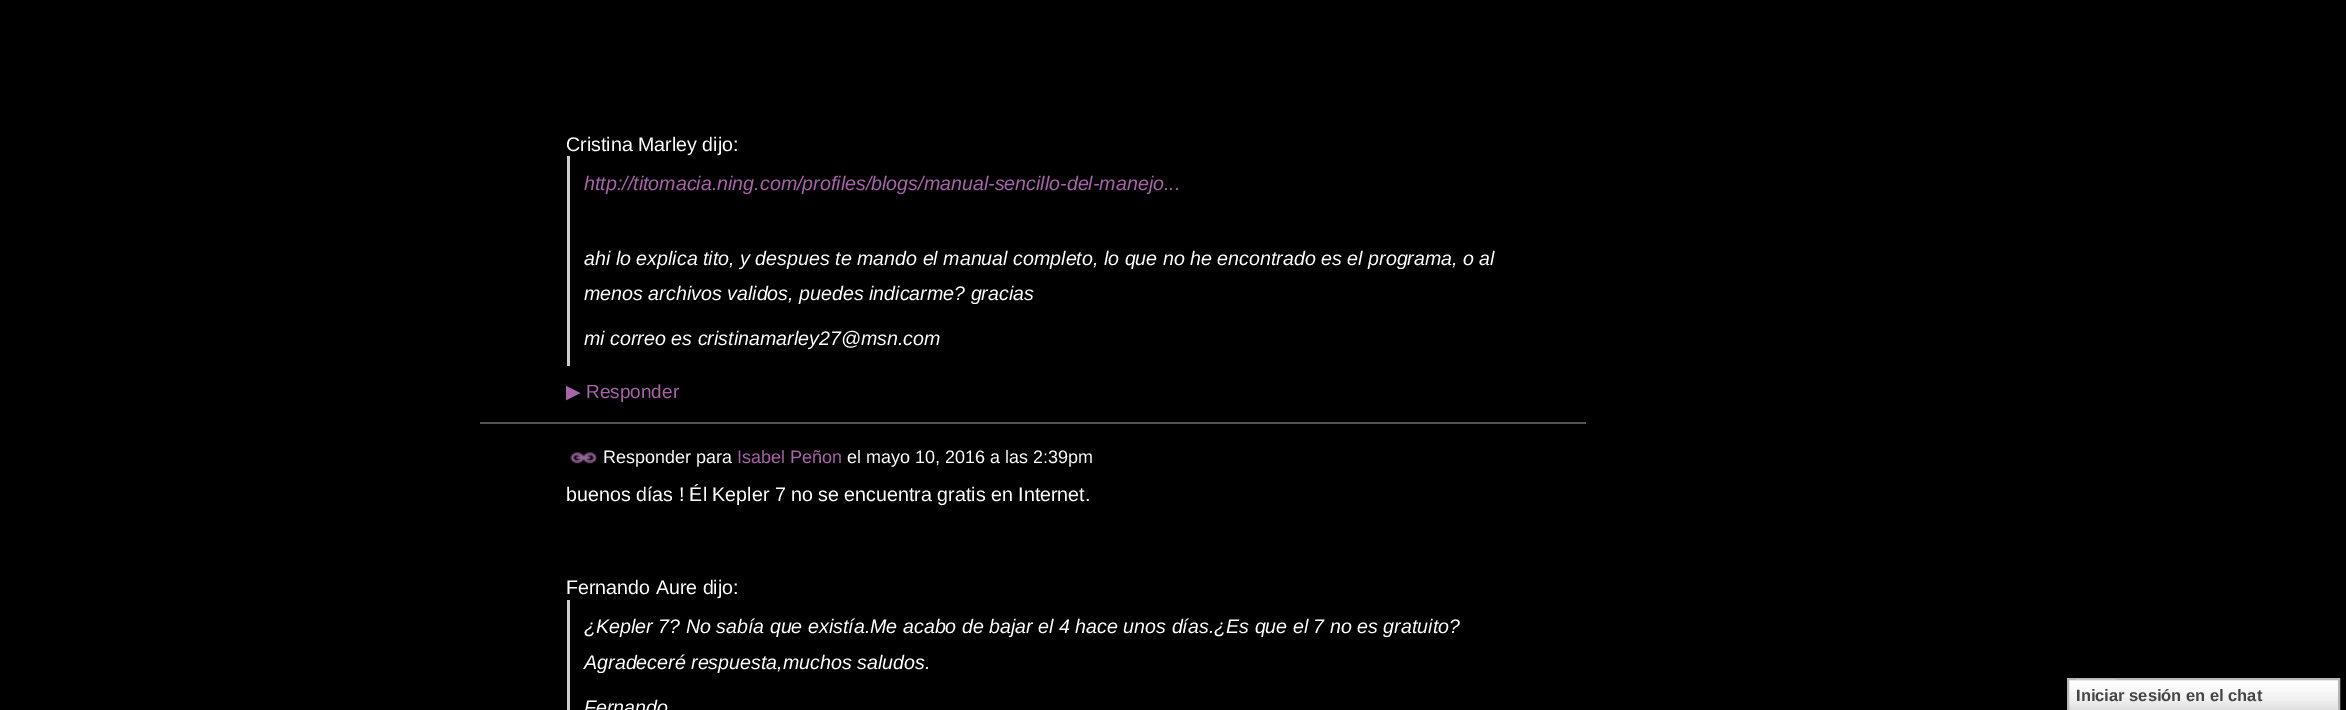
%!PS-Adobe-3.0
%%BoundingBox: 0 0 2346 710
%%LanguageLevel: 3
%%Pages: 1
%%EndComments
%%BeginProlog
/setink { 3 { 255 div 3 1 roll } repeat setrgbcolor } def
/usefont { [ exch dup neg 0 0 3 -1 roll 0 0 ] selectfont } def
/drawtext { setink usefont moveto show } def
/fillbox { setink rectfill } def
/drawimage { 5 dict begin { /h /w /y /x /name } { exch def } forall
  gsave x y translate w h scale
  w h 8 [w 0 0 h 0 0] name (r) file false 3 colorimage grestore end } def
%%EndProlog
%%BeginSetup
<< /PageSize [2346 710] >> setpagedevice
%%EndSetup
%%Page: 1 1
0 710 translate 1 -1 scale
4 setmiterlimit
0 0 2346 710 0 0 0 fillbox
(Cristina Marley dijo:) 566 151 /LiberationSans-Regular 19.65 255 255 255 drawtext
567 156 3 210 204 204 204 fillbox
(http://titomacia.ning.com/profiles/blogs/manual-sencillo-del-manejo...) 584 190 /LiberationSans-Italic 19.65 168 100 169 drawtext
(ahi lo explica tito, y despues te mando el manual completo, lo que no he encontrado es el programa, o al) 584 265 /LiberationSans-Italic 19.65 255 255 255 drawtext
(menos archivos validos, puedes indicarme? gracias) 584 300 /LiberationSans-Italic 19.65 255 255 255 drawtext
(mi correo es cristinamarley27@msn.com) 584 345 /LiberationSans-Italic 19.65 255 255 255 drawtext
(▶) 566 398 /DejaVuSans-Regular 19 168 100 169 drawtext
(Responder) 586 398 /LiberationSans-Regular 19 168 100 169 drawtext
480 422 1106 2 85 85 85 fillbox
(assets/img1.rgb) 570 452 28 12 drawimage
(Responder para) 603 463 /LiberationSans-Regular 18 255 255 255 drawtext
(Isabel Peñon) 737 463 /LiberationSans-Regular 18 168 100 169 drawtext
(el mayo 10, 2016 a las 2:39pm) 847 463 /LiberationSans-Regular 18 255 255 255 drawtext
(buenos días ! Él Kepler 7 no se encuentra gratis en Internet.) 566 501 /LiberationSans-Regular 19.65 255 255 255 drawtext
(Fernando Aure dijo:) 566 594 /LiberationSans-Regular 19.65 255 255 255 drawtext
567 600 3 110 204 204 204 fillbox
(¿Kepler 7? No sabía que existía.Me acabo de bajar el 4 hace unos días.¿Es que el 7 no es gratuito?) 584 633 /LiberationSans-Italic 19.65 255 255 255 drawtext
(Agradeceré respuesta,muchos saludos.) 584 669 /LiberationSans-Italic 19.65 255 255 255 drawtext
(Fernando) 584 714 /LiberationSans-Italic 19.65 255 255 255 drawtext
(assets/img2.rgb) 2069 680 269 30 drawimage
183 183 183 setink
2 setlinewidth
2068 679 271 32 rectstroke
(assets/img3.rgb) 2076 679 41 1 drawimage
(Iniciar sesión en el chat) 2076 701 /LiberationSans-Bold 16.5 69 69 69 drawtext
showpage
%%EOF
